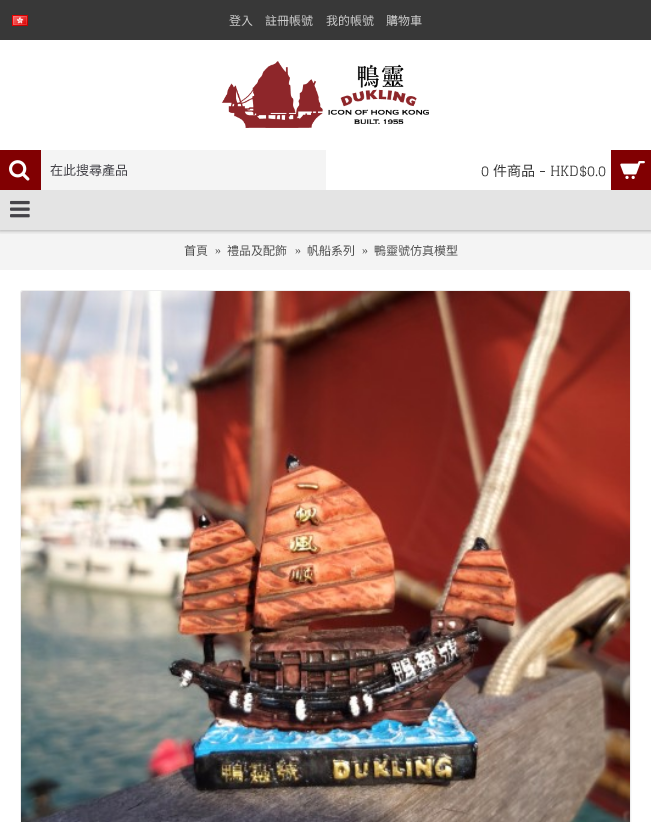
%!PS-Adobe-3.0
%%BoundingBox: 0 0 651 822
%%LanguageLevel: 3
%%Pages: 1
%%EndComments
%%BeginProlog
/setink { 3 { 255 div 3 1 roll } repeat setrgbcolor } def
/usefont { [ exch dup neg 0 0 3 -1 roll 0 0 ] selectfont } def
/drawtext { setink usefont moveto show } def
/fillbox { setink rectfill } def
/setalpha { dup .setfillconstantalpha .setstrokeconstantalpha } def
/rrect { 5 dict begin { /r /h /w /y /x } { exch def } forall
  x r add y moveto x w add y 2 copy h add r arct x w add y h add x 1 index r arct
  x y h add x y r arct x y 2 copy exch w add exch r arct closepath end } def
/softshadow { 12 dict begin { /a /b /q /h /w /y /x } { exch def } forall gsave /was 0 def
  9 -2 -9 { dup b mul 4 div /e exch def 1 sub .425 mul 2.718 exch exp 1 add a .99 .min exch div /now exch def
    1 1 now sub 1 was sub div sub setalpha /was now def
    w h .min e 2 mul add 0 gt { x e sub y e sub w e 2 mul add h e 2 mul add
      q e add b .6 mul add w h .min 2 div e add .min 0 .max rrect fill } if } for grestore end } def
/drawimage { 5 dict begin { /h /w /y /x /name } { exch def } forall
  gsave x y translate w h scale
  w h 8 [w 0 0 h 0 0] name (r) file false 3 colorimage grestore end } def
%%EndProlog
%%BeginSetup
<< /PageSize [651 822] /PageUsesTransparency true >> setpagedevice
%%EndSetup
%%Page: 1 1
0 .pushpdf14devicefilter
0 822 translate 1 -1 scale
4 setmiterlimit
0 0 651 822 255 255 255 fillbox
0 230 651 40 244 244 244 fillbox
gsave
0 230 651 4 rectclip
0 0 0 setink
0 0 651 230 0 2.5 0.4 softshadow
grestore
0 0 651 40 56 56 56 fillbox
(assets/img1.rgb) 12 15 16 11 drawimage
(登入) 229 25 /NotoSansCJKHK-Regular 12 204 204 204 drawtext
(註冊帳號) 265 25 /NotoSansCJKHK-Regular 12 204 204 204 drawtext
(我的帳號) 326 25 /NotoSansCJKHK-Regular 12 204 204 204 drawtext
(購物車) 386 25 /NotoSansCJKHK-Regular 12 204 204 204 drawtext
(assets/img2.rgb) 221 61 208 67 drawimage
0 150 41 40 129 0 2 fillbox
(assets/img3.rgb) 9 160 21 21 drawimage
41 150 285 40 244 244 244 fillbox
(在此搜尋產品) 50 175 /NotoSansCJKHK-Regular 13 68 67 73 drawtext
(0) 481 176 /Glegoo-Regular 14 56 56 56 drawtext
(件商品) 493 176 /NotoSansCJKHK-Regular 14 56 56 56 drawtext
(- HKD$0.0) 539 176 /Glegoo-Regular 14 56 56 56 drawtext
611 150 40 40 129 0 2 fillbox
(assets/img4.rgb) 620 161 25 18 drawimage
0 190 651 40 228 228 228 fillbox
(assets/img5.rgb) 10 200 20 18 drawimage
(首頁) 184 255 /NotoSansCJKHK-Regular 12 80 80 80 drawtext
(») 215 254 /LiberationSerif-Regular 12 80 80 80 drawtext
(禮品及配飾) 227 255 /NotoSansCJKHK-Regular 12 80 80 80 drawtext
(») 295 254 /LiberationSerif-Regular 12 80 80 80 drawtext
(帆船系列) 307 255 /NotoSansCJKHK-Regular 12 80 80 80 drawtext
(») 362 254 /LiberationSerif-Regular 12 80 80 80 drawtext
(鴨靈號仿真模型) 374 255 /NotoSansCJKHK-Regular 12 80 80 80 drawtext
238 238 238 setink
20.5 290.5 610 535 2.5 rrect stroke
(assets/img6.rgb) 21 291 609 531 drawimage
.poppdf14devicefilter showpage
%%EOF
